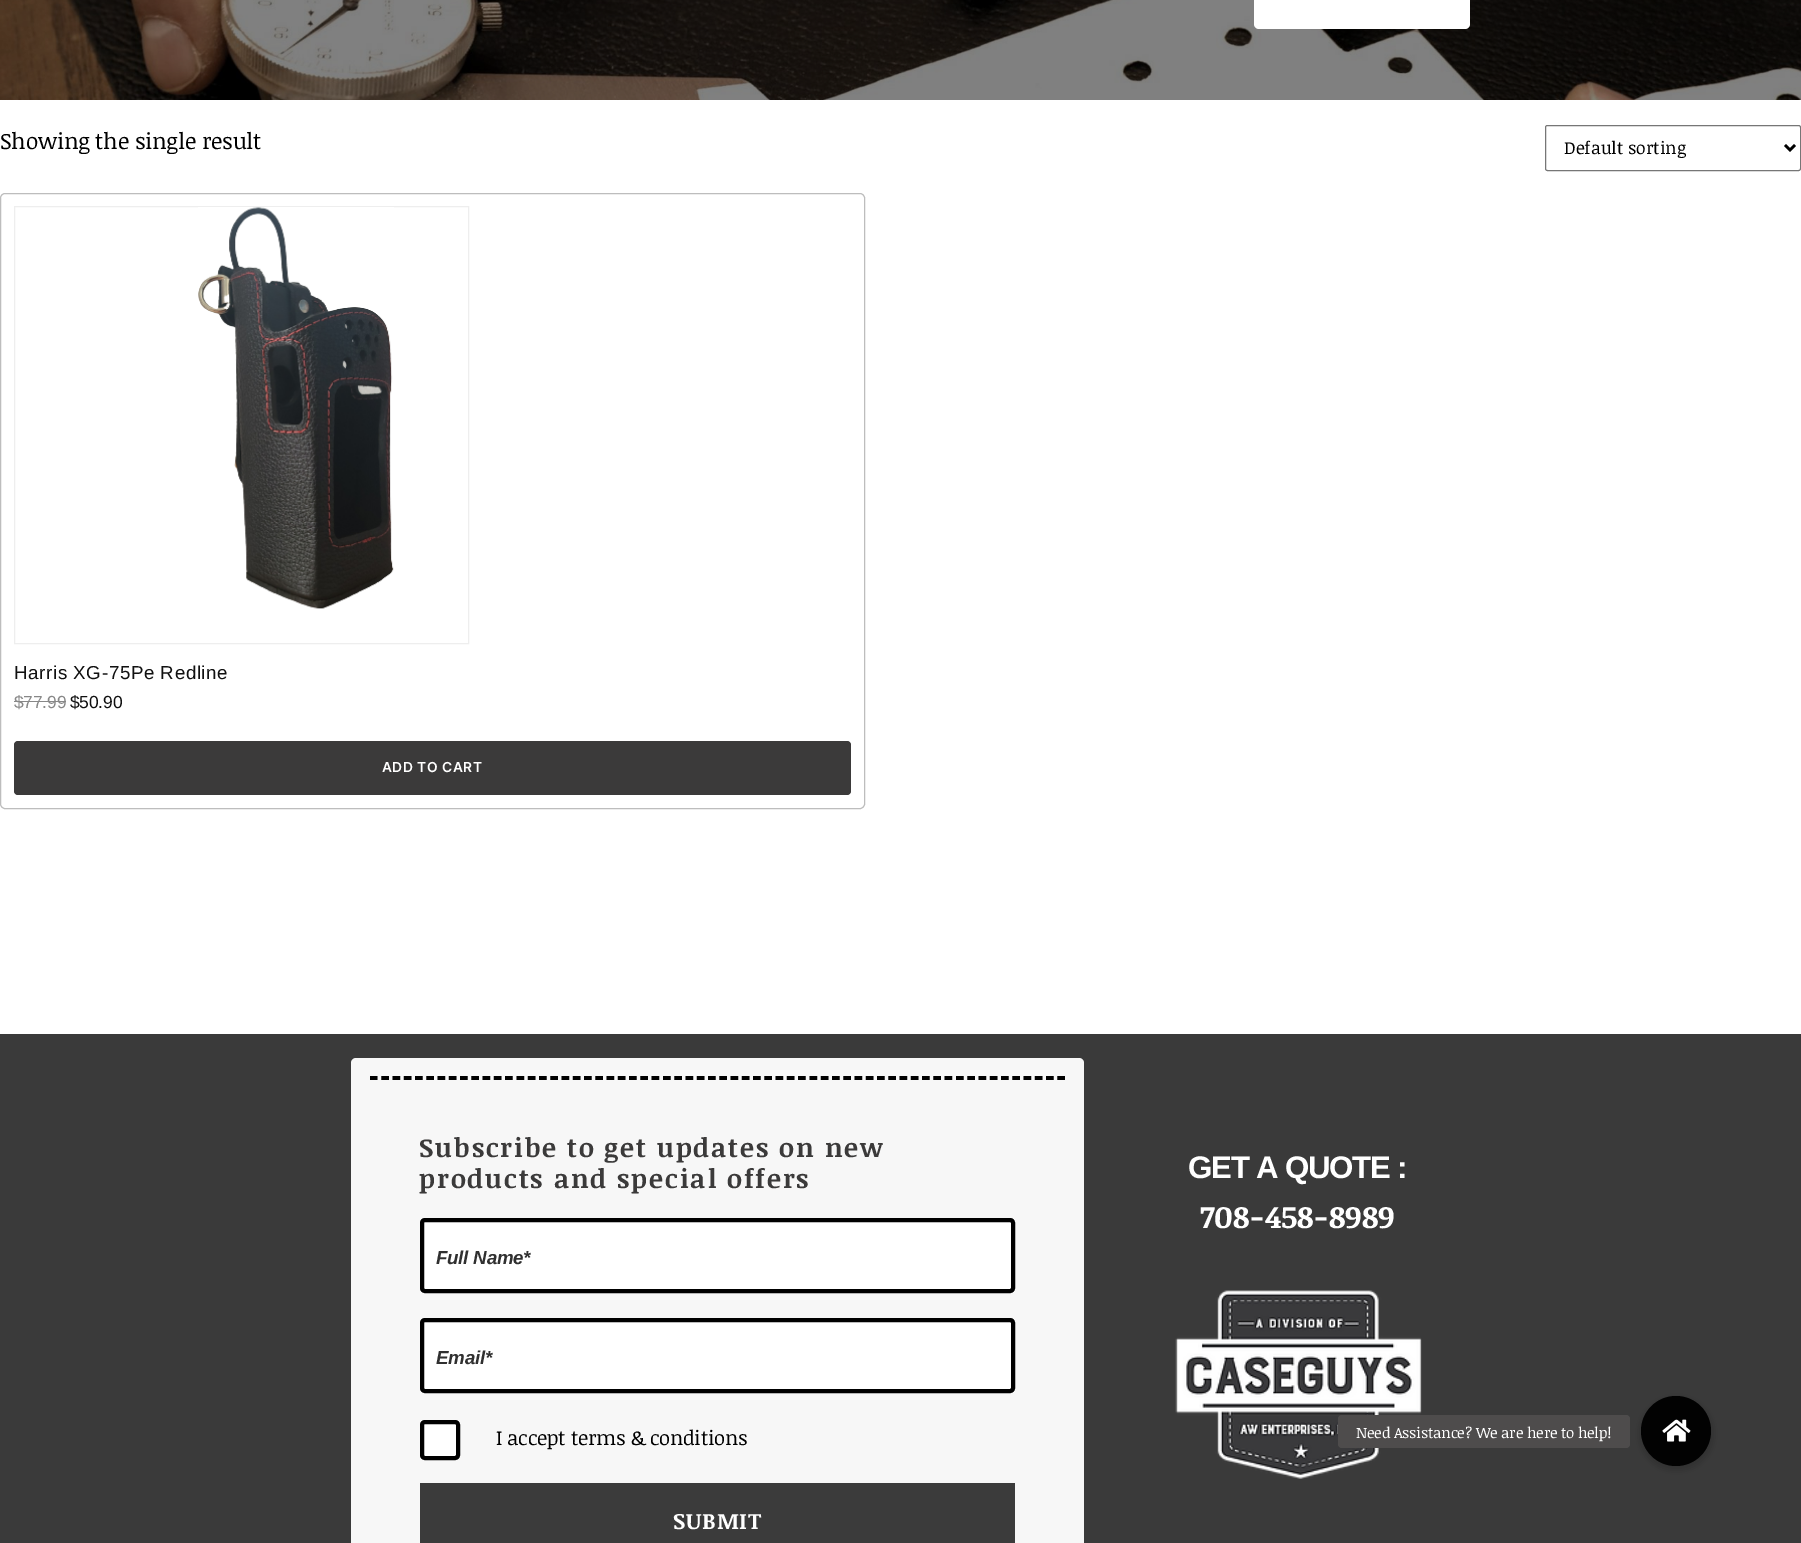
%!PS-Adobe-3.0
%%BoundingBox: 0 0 1801 1543
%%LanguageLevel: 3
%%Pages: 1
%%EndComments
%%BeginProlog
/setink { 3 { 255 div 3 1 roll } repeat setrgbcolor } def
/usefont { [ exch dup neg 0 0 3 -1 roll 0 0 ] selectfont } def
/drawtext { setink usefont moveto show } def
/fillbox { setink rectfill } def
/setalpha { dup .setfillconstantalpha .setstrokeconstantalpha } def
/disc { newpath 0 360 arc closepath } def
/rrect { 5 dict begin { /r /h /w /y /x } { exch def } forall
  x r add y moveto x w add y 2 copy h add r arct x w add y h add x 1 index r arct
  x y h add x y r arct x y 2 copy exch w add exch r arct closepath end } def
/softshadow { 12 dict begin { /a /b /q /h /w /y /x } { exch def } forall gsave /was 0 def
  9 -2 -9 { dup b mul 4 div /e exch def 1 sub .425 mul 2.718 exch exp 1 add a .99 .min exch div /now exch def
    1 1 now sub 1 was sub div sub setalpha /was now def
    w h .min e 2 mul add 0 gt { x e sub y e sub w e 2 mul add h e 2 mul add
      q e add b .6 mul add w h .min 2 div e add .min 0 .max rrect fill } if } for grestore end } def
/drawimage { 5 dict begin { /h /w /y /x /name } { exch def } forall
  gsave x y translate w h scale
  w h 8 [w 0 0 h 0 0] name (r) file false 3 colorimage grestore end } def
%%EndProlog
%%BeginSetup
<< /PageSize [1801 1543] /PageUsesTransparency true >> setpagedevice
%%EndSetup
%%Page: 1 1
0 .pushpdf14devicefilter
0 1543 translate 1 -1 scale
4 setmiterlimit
0 0 1801 1543 255 255 255 fillbox
(assets/img1.rgb) 0 0 1801 100 drawimage
1254 -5 216 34 5 rrect fill
/NoticiaText-Regular 22.5 usefont
0 0 0 setink
0 149 moveto -0.25 0 (Showing the single result) ashow
118 118 118 setink
1545.5 125.5 255 45 2 rrect stroke
0 0 0 setink
2.5 setlinewidth
1785 145 moveto 1790 150 lineto 1795 145 lineto stroke
(Default sorting) 1564 154 /NoticiaText-Regular 17.5 0 0 0 drawtext
189 189 189 setink
1 setlinewidth
0.5 193.5 864 615 4.5 rrect stroke
238 238 238 setink
14.5 206.5 454 437 rectstroke
(assets/img2.rgb) 198 207 196 402 drawimage
/LiberationSans-Regular 18.75 usefont
17 17 17 setink
14 679 moveto 0.6 0 (Harris XG-75Pe Redline) ashow
/LiberationSans-Regular 17.5 usefont
136 136 136 setink
14 708 moveto -0.25 0 ($77.99) ashow
14 701 52 1 136 136 136 fillbox
17 17 17 setink
70 708 moveto -0.25 0 ($50.90) ashow
59 58 58 setink
14 741 837 54 4 rrect fill
/Inter-SemiBold 13.75 usefont
255 255 255 setink
382 772 moveto 0.5 0 (ADD TO CART) ashow
0 1034 1801 509 58 58 58 fillbox
247 247 247 setink
351 1058 733 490 5 rrect fill
0 0 0 setink
3.8 setlinewidth
[7.5 3.77] 0 setdash
370 1078 moveto 1065 1078 lineto stroke
/NoticiaText-Bold 26.25 usefont
59 58 58 setink
419 1157 moveto 1.9 0 (Subscribe to get updates on new) ashow
419 1188 moveto 1.9 0 (products and special offers) ashow
255 255 255 setink
422 1220 591 71 3 rrect gsave fill grestore
0 0 0 setink
4 setlinewidth
[] 0 setdash
stroke
/LiberationSans-BoldItalic 18.75 usefont
48 48 48 setink
436 1264 moveto -0.25 0 (Full Name*) ashow
255 255 255 setink
422 1320 591 71 3 rrect gsave fill grestore
0 0 0 setink
stroke
48 48 48 setink
436 1364 moveto -0.25 0 (Email*) ashow
255 255 255 setink
422 1422 36 36 3 rrect gsave fill grestore
0 0 0 setink
stroke
/NoticiaText-Regular 20.25 usefont
496 1445 moveto -0.25 0 (I accept terms & conditions) ashow
420 1483 595 60 59 59 59 fillbox
/NoticiaText-Bold 22.5 usefont
255 255 255 setink
673 1529 moveto 0.75 0 (SUBMIT) ashow
/LiberationSans-Bold 31.25 usefont
1188 1178 moveto -1.25 0 (GET A QUOTE :) ashow
/NoticiaText-Bold 31.25 usefont
1200 1228 moveto -0.25 0 (708-458-8989) ashow
(assets/img3.rgb) 1175 1290 247 189 drawimage
0 0 0 setink
1640 1398 73 72 36 4 0.2 softshadow
2 2 2 setink
1676 1431 35 disc fill
78 76 76 setink
1338 1415 292 33 4 rrect fill
/NoticiaText-Regular 15 usefont
255 255 255 setink
1356 1438 moveto -0.25 0 (Need Assistance? We are here to help!) ashow
(assets/img4.rgb) 1662 1419 29 23 drawimage
.poppdf14devicefilter showpage
%%EOF
